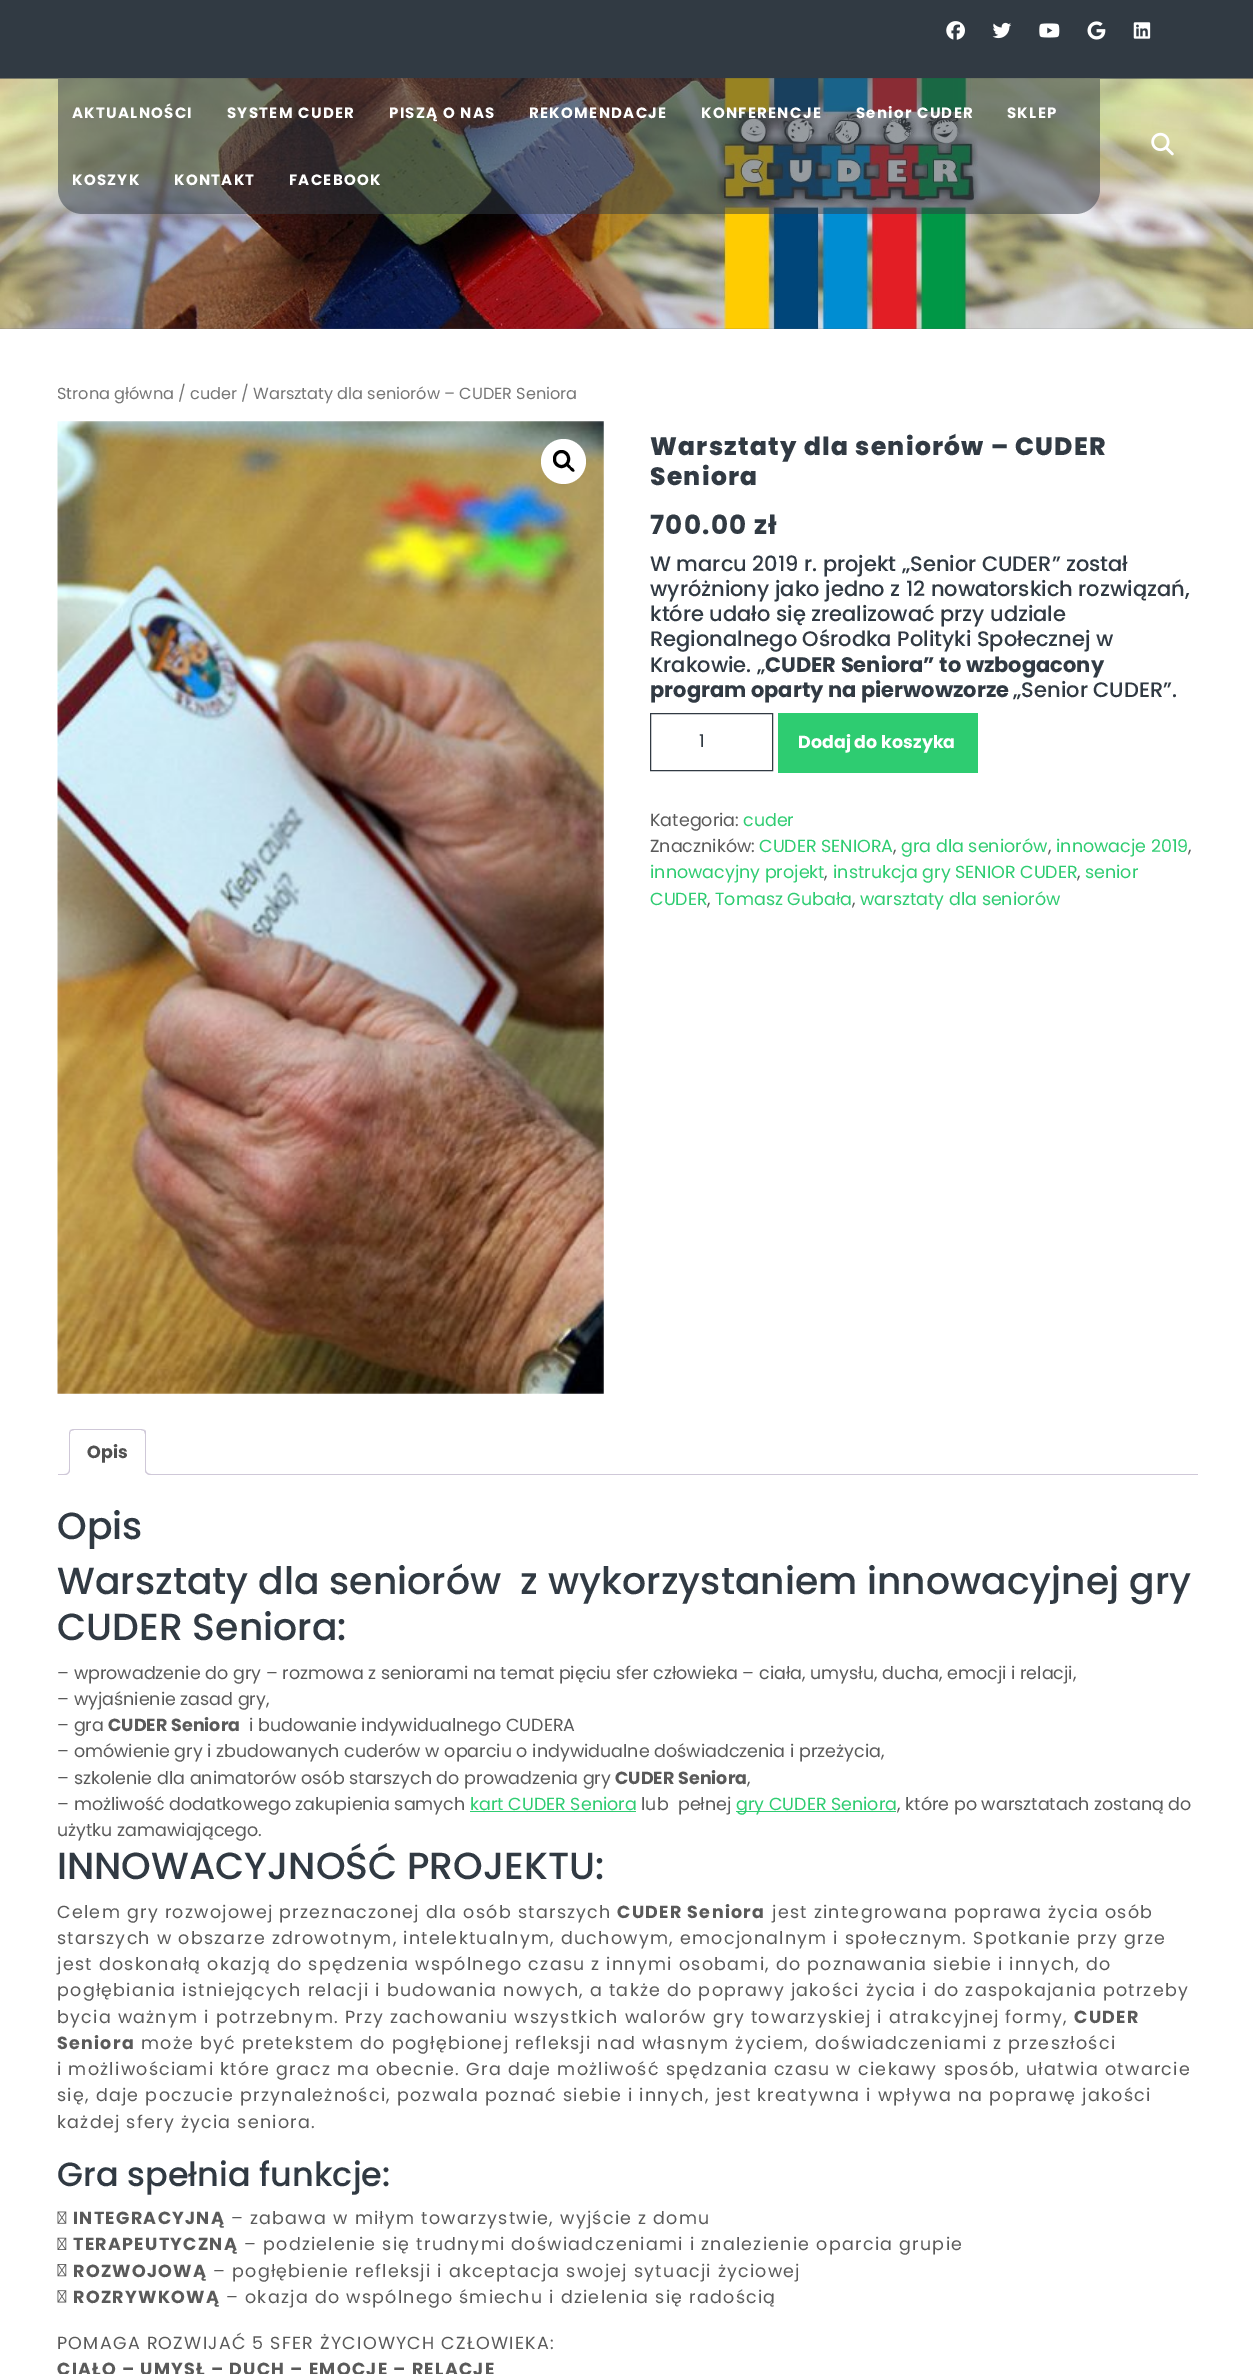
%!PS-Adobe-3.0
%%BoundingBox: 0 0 1253 2374
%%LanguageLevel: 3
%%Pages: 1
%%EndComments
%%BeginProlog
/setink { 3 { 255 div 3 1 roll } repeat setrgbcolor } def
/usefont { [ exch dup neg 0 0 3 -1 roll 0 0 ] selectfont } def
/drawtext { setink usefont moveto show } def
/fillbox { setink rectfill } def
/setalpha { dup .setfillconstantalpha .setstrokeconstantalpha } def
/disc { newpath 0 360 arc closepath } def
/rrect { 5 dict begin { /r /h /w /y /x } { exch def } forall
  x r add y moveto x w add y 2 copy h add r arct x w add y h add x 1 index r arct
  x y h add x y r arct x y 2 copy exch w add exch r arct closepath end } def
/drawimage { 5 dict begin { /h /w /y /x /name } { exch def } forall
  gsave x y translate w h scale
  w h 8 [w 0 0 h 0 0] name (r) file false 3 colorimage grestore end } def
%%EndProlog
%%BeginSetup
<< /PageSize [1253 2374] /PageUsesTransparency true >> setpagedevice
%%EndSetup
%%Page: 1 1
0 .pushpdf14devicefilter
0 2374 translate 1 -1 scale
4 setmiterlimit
0 0 1253 2374 255 255 255 fillbox
0 0 1253 79 49 58 67 fillbox
(assets/img1.rgb) 946 21 19 19 drawimage
(assets/img2.rgb) 992 22 20 17 drawimage
(assets/img3.rgb) 1039 23 21 15 drawimage
(assets/img4.rgb) 1087 21 19 19 drawimage
(assets/img5.rgb) 1133 22 18 17 drawimage
(assets/img6.rgb) 0 78 1253 251 drawimage
(assets/img7.rgb) 0 78 1253 251 drawimage
0.5 setalpha
58 79 moveto 1100 79 lineto 1100 189 lineto 1100 203 1089 214 1075 214 curveto 83 214 lineto 69 214 58 203 58 189 curveto closepath fill
/Poppins-Bold 15 usefont
1 setalpha
255 255 255 setink
72 118 moveto 1.25 0 (AKTUALNOŚCI) ashow
227 118 moveto 1.25 0 (SYSTEM CUDER) ashow
389 118 moveto 1.25 0 (PISZĄ O NAS) ashow
529 118 moveto 1.25 0 (REKOMENDACJE) ashow
701 118 moveto 1.25 0 (KONFERENCJE) ashow
856 118 moveto 1.25 0 (Senior CUDER) ashow
1007 118 moveto 1.25 0 (SKLEP) ashow
72 185 moveto 1.25 0 (KOSZYK) ashow
174 185 moveto 1.25 0 (KONTAKT) ashow
289 185 moveto 1.25 0 (FACEBOOK) ashow
(assets/img8.rgb) 1151 132 23 24 drawimage
(Strona główna / cuder / Warsztaty dla seniorów – CUDER Seniora) 57 399 /Poppins-Regular 16.1 118 118 118 drawtext
(assets/img9.rgb) 57 421 547 973 drawimage
255 255 255 setink
563.5 461.5 22.5 disc fill
0 0 0 setink
3 setlinewidth
554.5 451.5 14 15 7 rrect stroke
567 464 moveto 568 463 570.5 466 571 467 curveto 572 467.5 575.5 470 574 471.5 curveto 572.5 472.5 570 469.5 569.5 468.5 curveto 568.5 468 565.5 465.5 567 464 curveto closepath fill
/Poppins-ExtraBold 25 usefont
49 58 67 setink
650 455 moveto 1.25 0 (Warsztaty dla seniorów – CUDER) ashow
650 485 moveto 1.25 0 (Seniora) ashow
/Poppins-Bold 26.25 usefont
650 534 moveto 1.25 0 (700.00 zł) ashow
(W marcu 2019 r. projekt „Senior CUDER” został) 650 571 /Poppins-Medium 21 49 58 67 drawtext
(wyróżniony jako jedno z 12 nowatorskich rozwiązań,) 650 596 /Poppins-Medium 21 49 58 67 drawtext
(które udało się zrealizować przy udziale) 650 621 /Poppins-Medium 21 49 58 67 drawtext
(Regionalnego Ośrodka Polityki Społecznej w) 650 646 /Poppins-Medium 21 49 58 67 drawtext
(Krakowie. „) 650 672 /Poppins-Medium 21 49 58 67 drawtext
(CUDER Seniora” to wzbogacony) 765 672 /Poppins-Bold 21 49 58 67 drawtext
(program oparty na pierwowzorze) 650 697 /Poppins-Bold 21 49 58 67 drawtext
(„Senior CUDER”.) 1013 697 /Poppins-Medium 21 49 58 67 drawtext
1 setlinewidth
650.5 713.5 122 57 rectstroke
(1) 699 747 /Poppins-Regular 17.5 49 58 67 drawtext
778 713 200 60 46 204 113 fillbox
(Dodaj do koszyka) 798 748 /Poppins-Bold 17.5 255 255 255 drawtext
(Kategoria:) 650 826 /Poppins-Regular 17.5 90 90 90 drawtext
(cuder) 743 826 /Poppins-Regular 17.5 46 204 113 drawtext
(Znaczników:) 650 852 /Poppins-Regular 17.5 90 90 90 drawtext
(CUDER SENIORA) 759 852 /Poppins-Regular 17.5 46 204 113 drawtext
(,) 893 852 /Poppins-Regular 17.5 90 90 90 drawtext
(gra dla seniorów) 901 852 /Poppins-Regular 17.5 46 204 113 drawtext
(,) 1048 852 /Poppins-Regular 17.5 90 90 90 drawtext
(innowacje 2019) 1056 852 /Poppins-Regular 17.5 46 204 113 drawtext
(,) 1188 852 /Poppins-Regular 17.5 90 90 90 drawtext
(innowacyjny projekt) 650 878 /Poppins-Regular 17.5 46 204 113 drawtext
(,) 824 878 /Poppins-Regular 17.5 90 90 90 drawtext
(instrukcja gry SENIOR CUDER) 833 878 /Poppins-Regular 17.5 46 204 113 drawtext
(,) 1077 878 /Poppins-Regular 17.5 90 90 90 drawtext
(senior) 1085 878 /Poppins-Regular 17.5 46 204 113 drawtext
(CUDER) 650 905 /Poppins-Regular 17.5 46 204 113 drawtext
(,) 707 905 /Poppins-Regular 17.5 90 90 90 drawtext
(Tomasz Gubała) 715 905 /Poppins-Regular 17.5 46 204 113 drawtext
(,) 852 905 /Poppins-Regular 17.5 90 90 90 drawtext
(warsztaty dla seniorów) 860 905 /Poppins-Regular 17.5 46 204 113 drawtext
58 1474 1140 1 207 200 216 fillbox
255 255 255 setink
74 1429 moveto 141 1429 lineto 144 1429 146 1431 146 1434 curveto 146 1475 lineto 69 1475 lineto 69 1434 lineto 69 1431 71 1429 74 1429 curveto closepath fill
207 200 216 setink
74 1429 moveto 72 1429 71 1430 70 1430 curveto 71 1431 lineto 74 1430 lineto 141 1430 lineto 144 1431 lineto 145 1430 lineto 144 1430 142 1429 141 1429 curveto closepath fill
146 1475 moveto 146 1434 lineto 146 1432 146 1431 145 1430 curveto 144 1431 lineto 144 1432 145 1433 145 1434 curveto 145 1474 lineto closepath fill
255 255 255 setink
69 1475 moveto 146 1475 lineto 145 1474 lineto 70 1474 lineto closepath fill
207 200 216 setink
70 1430 moveto 70 1431 69 1432 69 1434 curveto 69 1475 lineto 70 1474 lineto 70 1434 lineto 70 1433 70 1432 71 1431 curveto closepath fill
(Opis) 87 1458 /Poppins-Bold 17.5 81 81 81 drawtext
gsave
58 1429 1140 46 rectclip
255 255 255 setink
66 1475 moveto 66 1478 lineto 71.5 1478 73 1476.5 73 1471 curveto 70 1471 lineto 69.5 1473 68 1474.5 66 1475 curveto closepath fill
grestore
207 200 216 setink
64 1469 moveto 70 1469 lineto 70 1473 68 1475 64 1475 curveto closepath 64 1469 moveto 69 1469 lineto 69 1472.5 67.5 1474 64 1474 curveto closepath eofill
gsave
58 1429 1140 46 rectclip
255 255 255 setink
143 1471 moveto 143 1475.5 144 1478 149 1478 curveto 149 1475 lineto 147 1474.5 145.5 1473 145 1471 curveto closepath fill
grestore
145 1469 moveto 151 1469 lineto 151 1475 lineto 148 1475 145 1473.5 145 1470 curveto closepath 146 1469 moveto 151 1469 lineto 151 1474 lineto 149 1474 146 1473 146 1470 curveto closepath eofill
(Opis) 57 1539 /Poppins-Medium 37.75 49 58 67 drawtext
(Warsztaty dla seniorów  z wykorzystaniem innowacyjnej gry) 57 1594 /Poppins-Medium 37.75 49 58 67 drawtext
(CUDER Seniora:) 57 1640 /Poppins-Medium 37.75 49 58 67 drawtext
(– wprowadzenie do gry – rozmowa z seniorami na temat pięciu sfer człowieka – ciała, umysłu, ducha, emocji i relacji,) 57 1679 /Poppins-Regular 17.5 90 90 90 drawtext
(– wyjaśnienie zasad gry,) 57 1705 /Poppins-Regular 17.5 90 90 90 drawtext
(– gra) 57 1731 /Poppins-Regular 17.5 90 90 90 drawtext
(CUDER Seniora) 108 1731 /Poppins-Bold 17.5 90 90 90 drawtext
(i budowanie indywidualnego CUDERA) 249 1731 /Poppins-Regular 17.5 90 90 90 drawtext
(– omówienie gry i zbudowanych cuderów w oparciu o indywidualne doświadczenia i przeżycia,) 57 1757 /Poppins-Regular 17.5 90 90 90 drawtext
(– szkolenie dla animatorów osób starszych do prowadzenia gry) 57 1784 /Poppins-Regular 17.5 90 90 90 drawtext
(CUDER Seniora) 615 1784 /Poppins-Bold 17.5 90 90 90 drawtext
(,) 747 1784 /Poppins-Regular 17.5 90 90 90 drawtext
(– możliwość dodatkowego zakupienia samych) 57 1810 /Poppins-Regular 17.5 90 90 90 drawtext
(kart CUDER Seniora) 470 1810 /Poppins-Regular 17.5 46 204 113 drawtext
470 1811 166 1 46 204 113 fillbox
(lub  pełnej) 641 1810 /Poppins-Regular 17.5 90 90 90 drawtext
736 1811 160 1 46 204 113 fillbox
(gry CUDER Seniora) 736 1810 /Poppins-Regular 17.5 46 204 113 drawtext
(, które po warsztatach zostaną do) 897 1810 /Poppins-Regular 17.5 90 90 90 drawtext
(użytku zamawiającego.) 57 1836 /Poppins-Regular 17.5 90 90 90 drawtext
(INNOWACYJNOŚĆ PROJEKTU:) 57 1879 /Poppins-Medium 37.75 49 58 67 drawtext
/Poppins-Regular 17.5 usefont
90 90 90 setink
57 1918 moveto 1.25 0 (Celem gry rozwojowej przeznaczonej dla osób starszych) ashow
/Poppins-Bold 17.5 usefont
617 1918 moveto 1.25 0 (CUDER Seniora) ashow
/Poppins-Regular 17.5 usefont
772 1918 moveto 1.25 0 (jest zintegrowana poprawa życia osób) ashow
57 1944 moveto 1.25 0 (starszych w obszarze zdrowotnym, intelektualnym, duchowym, emocjonalnym i społecznym. Spotkanie przy grze) ashow
57 1970 moveto 1.25 0 (jest doskonałą okazją do spędzenia wspólnego czasu z innymi osobami, do poznawania siebie i innych, do) ashow
57 1996 moveto 1.25 0 (pogłębiania istniejących relacji i budowania nowych, a także do poprawy jakości życia i do zaspokajania potrzeby) ashow
57 2023 moveto 1.25 0 (bycia ważnym i potrzebnym. Przy zachowaniu wszystkich walorów gry towarzyskiej i atrakcyjnej formy,) ashow
/Poppins-Bold 17.5 usefont
1074 2023 moveto 1.25 0 (CUDER) ashow
57 2049 moveto 1.25 0 (Seniora) ashow
/Poppins-Regular 17.5 usefont
141 2049 moveto 1.25 0 (może być pretekstem do pogłębionej refleksji nad własnym życiem, doświadczeniami z przeszłości) ashow
57 2075 moveto 1.25 0 (i możliwościami które gracz ma obecnie. Gra daje możliwość spędzania czasu w ciekawy sposób, ułatwia otwarcie) ashow
57 2101 moveto 1.25 0 (się, daje poczucie przynależności, pozwala poznać siebie i innych, jest kreatywna i wpływa na poprawę jakości) ashow
57 2128 moveto 1.25 0 (każdej sfery życia seniora.) ashow
(Gra spełnia funkcje:) 57 2186 /Poppins-Medium 33.5 49 58 67 drawtext
(assets/img10.rgb) 57 2211 10 13 drawimage
/Poppins-Bold 17.5 usefont
90 90 90 setink
73 2224 moveto 1.25 0 (INTEGRACYJNĄ) ashow
/Poppins-Regular 17.5 usefont
231 2224 moveto 1.25 0 (– zabawa w miłym towarzystwie, wyjście z domu) ashow
(assets/img11.rgb) 57 2237 10 13 drawimage
/Poppins-Bold 17.5 usefont
73 2250 moveto 1.25 0 (TERAPEUTYCZNĄ) ashow
/Poppins-Regular 17.5 usefont
244 2250 moveto 1.25 0 (– podzielenie się trudnymi doświadczeniami i znalezienie oparcia grupie) ashow
(assets/img12.rgb) 57 2264 10 13 drawimage
/Poppins-Bold 17.5 usefont
73 2277 moveto 1.25 0 (ROZWOJOWĄ) ashow
/Poppins-Regular 17.5 usefont
213 2277 moveto 1.25 0 (– pogłębienie refleksji i akceptacja swojej sytuacji życiowej) ashow
(assets/img13.rgb) 57 2290 10 13 drawimage
/Poppins-Bold 17.5 usefont
73 2303 moveto 1.25 0 (ROZRYWKOWĄ) ashow
/Poppins-Regular 17.5 usefont
226 2303 moveto 1.25 0 (– okazja do wspólnego śmiechu i dzielenia się radością) ashow
57 2349 moveto 1.25 0 (POMAGA ROZWIJAĆ 5 SFER ŻYCIOWYCH CZŁOWIEKA:) ashow
/Poppins-Bold 17.5 usefont
57 2375 moveto 1.25 0 (CIAŁO – UMYSŁ – DUCH – EMOCJE – RELACJE) ashow
.poppdf14devicefilter showpage
%%EOF
